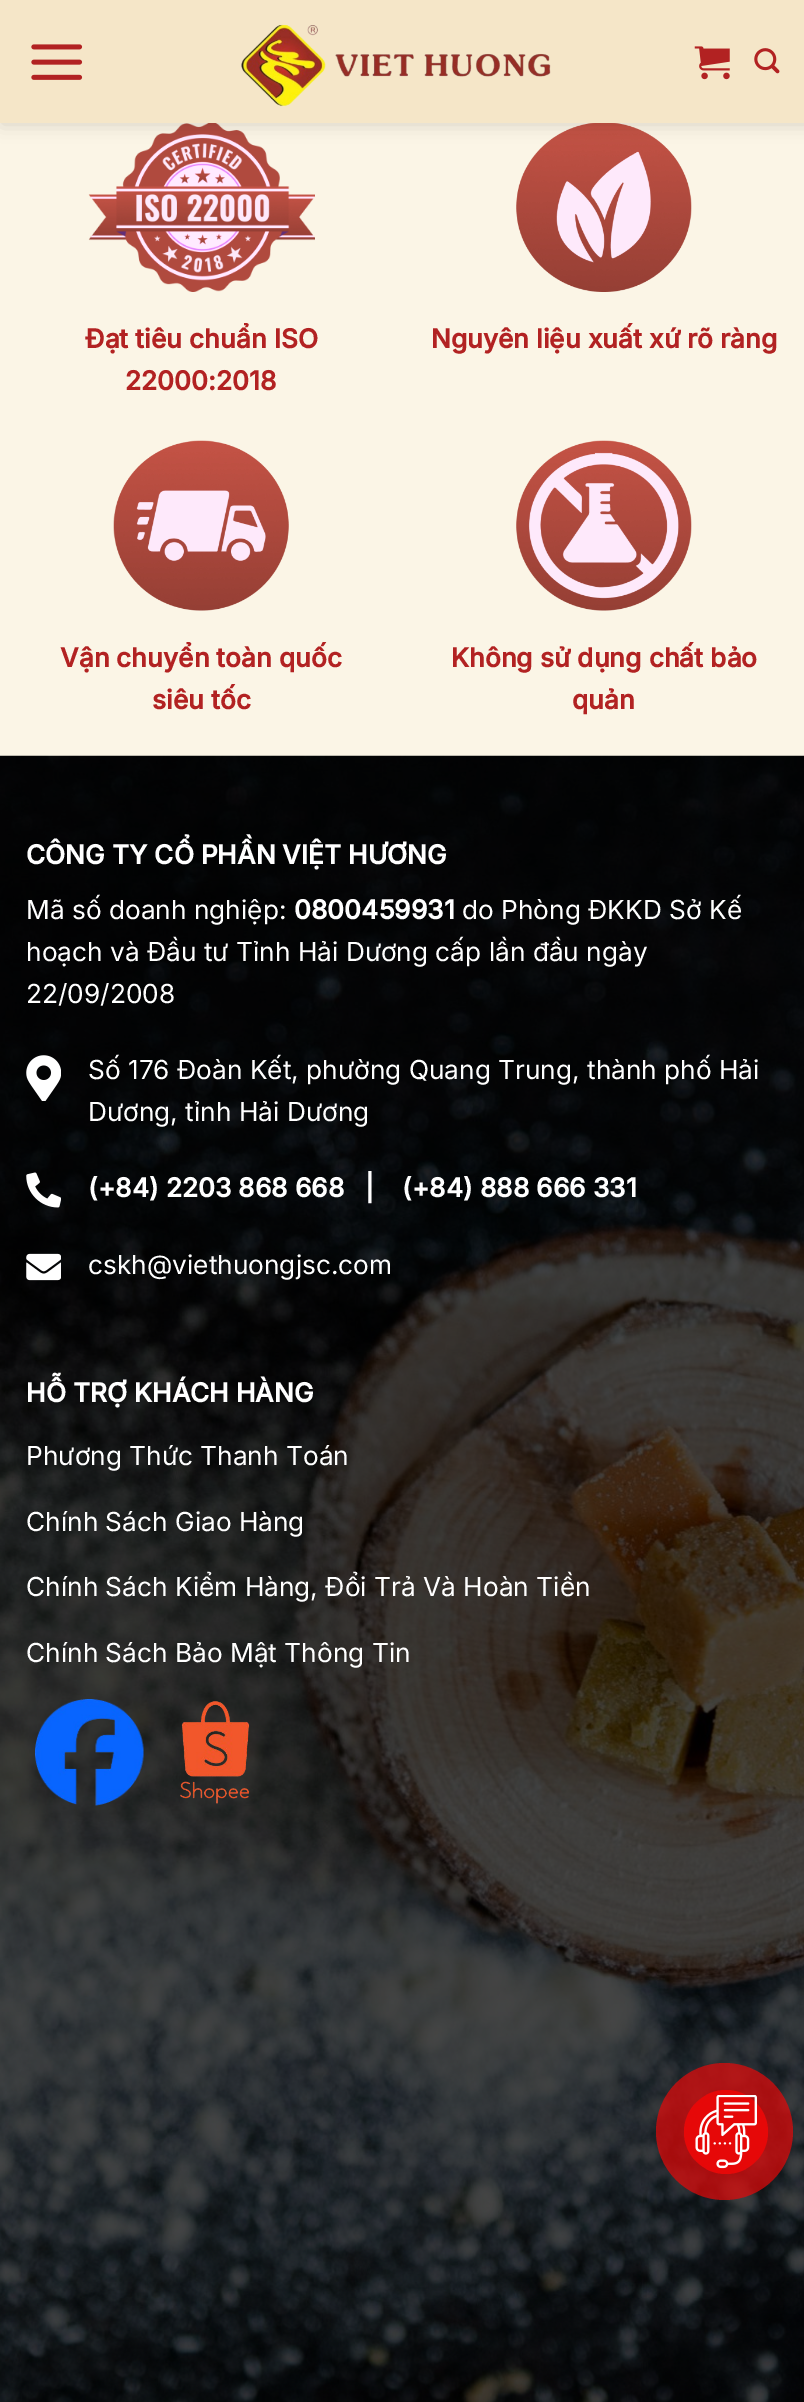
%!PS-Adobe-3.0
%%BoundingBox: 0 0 804 2402
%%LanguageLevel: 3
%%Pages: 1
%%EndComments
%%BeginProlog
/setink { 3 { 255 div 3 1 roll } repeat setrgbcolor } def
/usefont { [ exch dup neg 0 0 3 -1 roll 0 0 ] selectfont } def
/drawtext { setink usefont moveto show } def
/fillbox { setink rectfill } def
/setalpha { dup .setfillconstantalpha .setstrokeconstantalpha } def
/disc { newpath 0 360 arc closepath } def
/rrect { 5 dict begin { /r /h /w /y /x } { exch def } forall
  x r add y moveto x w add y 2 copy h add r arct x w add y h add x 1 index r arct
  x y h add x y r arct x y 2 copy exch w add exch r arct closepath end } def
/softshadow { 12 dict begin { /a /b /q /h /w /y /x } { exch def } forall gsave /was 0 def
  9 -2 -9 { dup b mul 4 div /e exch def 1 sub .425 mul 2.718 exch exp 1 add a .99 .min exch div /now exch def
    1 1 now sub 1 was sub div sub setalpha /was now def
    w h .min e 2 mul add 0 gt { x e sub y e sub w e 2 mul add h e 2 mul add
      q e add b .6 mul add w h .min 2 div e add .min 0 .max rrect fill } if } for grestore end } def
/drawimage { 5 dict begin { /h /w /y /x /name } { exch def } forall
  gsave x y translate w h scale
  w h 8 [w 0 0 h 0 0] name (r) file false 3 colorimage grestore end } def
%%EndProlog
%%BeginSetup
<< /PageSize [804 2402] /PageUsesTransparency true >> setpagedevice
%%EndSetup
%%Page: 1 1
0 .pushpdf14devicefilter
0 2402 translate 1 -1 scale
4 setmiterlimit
0 0 804 2402 251 245 230 fillbox
(assets/img5.rgb) 88 123 227 169 drawimage
(assets/img6.rgb) 516 123 176 169 drawimage
0 0 0 setink
2 2 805 122 0 9 0.15 softshadow
0 0 804 123 245 230 200 fillbox
(assets/img1.rgb) 31 44 52 36 drawimage
(assets/img2.rgb) 241 24 310 83 drawimage
(assets/img3.rgb) 694 46 36 34 drawimage
(assets/img4.rgb) 754 48 26 26 drawimage
(Đạt tiêu chuẩn ISO) 85 348 /Inter-Bold 26.25 178 34 34 drawtext
(22000:2018) 125 390 /Inter-Bold 26.25 178 34 34 drawtext
(Nguyên liệu xuất xứ rõ ràng) 431 348 /Inter-Bold 26.25 178 34 34 drawtext
(assets/img7.rgb) 113 440 176 171 drawimage
(Vận chuyển toàn quốc) 60 667 /Inter-Bold 26.25 178 34 34 drawtext
(siêu tốc) 152 709 /Inter-Bold 26.25 178 34 34 drawtext
(assets/img8.rgb) 516 440 176 171 drawimage
(Không sử dụng chất bảo) 451 667 /Inter-Bold 26.25 178 34 34 drawtext
(quản) 572 709 /Inter-Bold 26.25 178 34 34 drawtext
(assets/img9.rgb) 0 755 804 1647 drawimage
(CÔNG TY CỔ PHẦN VIỆT HƯƠNG) 26 864 /Inter-Bold 26.25 255 255 255 drawtext
(Mã số doanh nghiệp:) 26 919 /Inter-Regular 26.25 255 255 255 drawtext
(0800459931) 294 919 /Inter-Bold 26.25 255 255 255 drawtext
(do Phòng ĐKKD Sở Kế) 462 919 /Inter-Regular 26.25 255 255 255 drawtext
(hoạch và Đầu tư Tỉnh Hải Dương cấp lần đầu ngày) 26 961 /Inter-Regular 26.25 255 255 255 drawtext
(22/09/2008) 26 1003 /Inter-Regular 26.25 255 255 255 drawtext
(assets/img10.rgb) 26 1055 35 46 drawimage
(Số 176 Đoàn Kết, phường Quang Trung, thành phố Hải) 88 1079 /Inter-Regular 26.25 255 255 255 drawtext
(Dương, tỉnh Hải Dương) 88 1121 /Inter-Regular 26.25 255 255 255 drawtext
(assets/img11.rgb) 26 1172 35 36 drawimage
(\(+84\) 2203 868 668) 88 1197 /Inter-Bold 26.25 255 255 255 drawtext
(|) 365 1197 /Inter-Bold 26.25 255 255 255 drawtext
(\(+84\) 888 666 331) 402 1197 /Inter-Bold 26.25 255 255 255 drawtext
(assets/img12.rgb) 26 1253 35 28 drawimage
(cskh@viethuongjsc.com) 88 1274 /Inter-Regular 26.25 255 255 255 drawtext
(HỖ TRỢ KHÁCH HÀNG) 26 1402 /Inter-Bold 26.25 255 255 255 drawtext
(Phương Thức Thanh Toán) 26 1465 /Inter-Regular 26.25 255 255 255 drawtext
(Chính Sách Giao Hàng) 26 1531 /Inter-Regular 26.25 255 255 255 drawtext
(Chính Sách Kiểm Hàng, Đổi Trả Và Hoàn Tiền) 26 1596 /Inter-Regular 26.25 255 255 255 drawtext
(Chính Sách Bảo Mật Thông Tin) 26 1662 /Inter-Regular 26.25 255 255 255 drawtext
(assets/img13.rgb) 35 1699 109 107 drawimage
(assets/img14.rgb) 180 1701 70 103 drawimage
0.7 setalpha
230 8 8 setink
724.5 2131.5 68.5 disc fill
1 setalpha
726 2132 42 disc fill
(assets/img15.rgb) 695 2095 62 74 drawimage
.poppdf14devicefilter showpage
%%EOF
